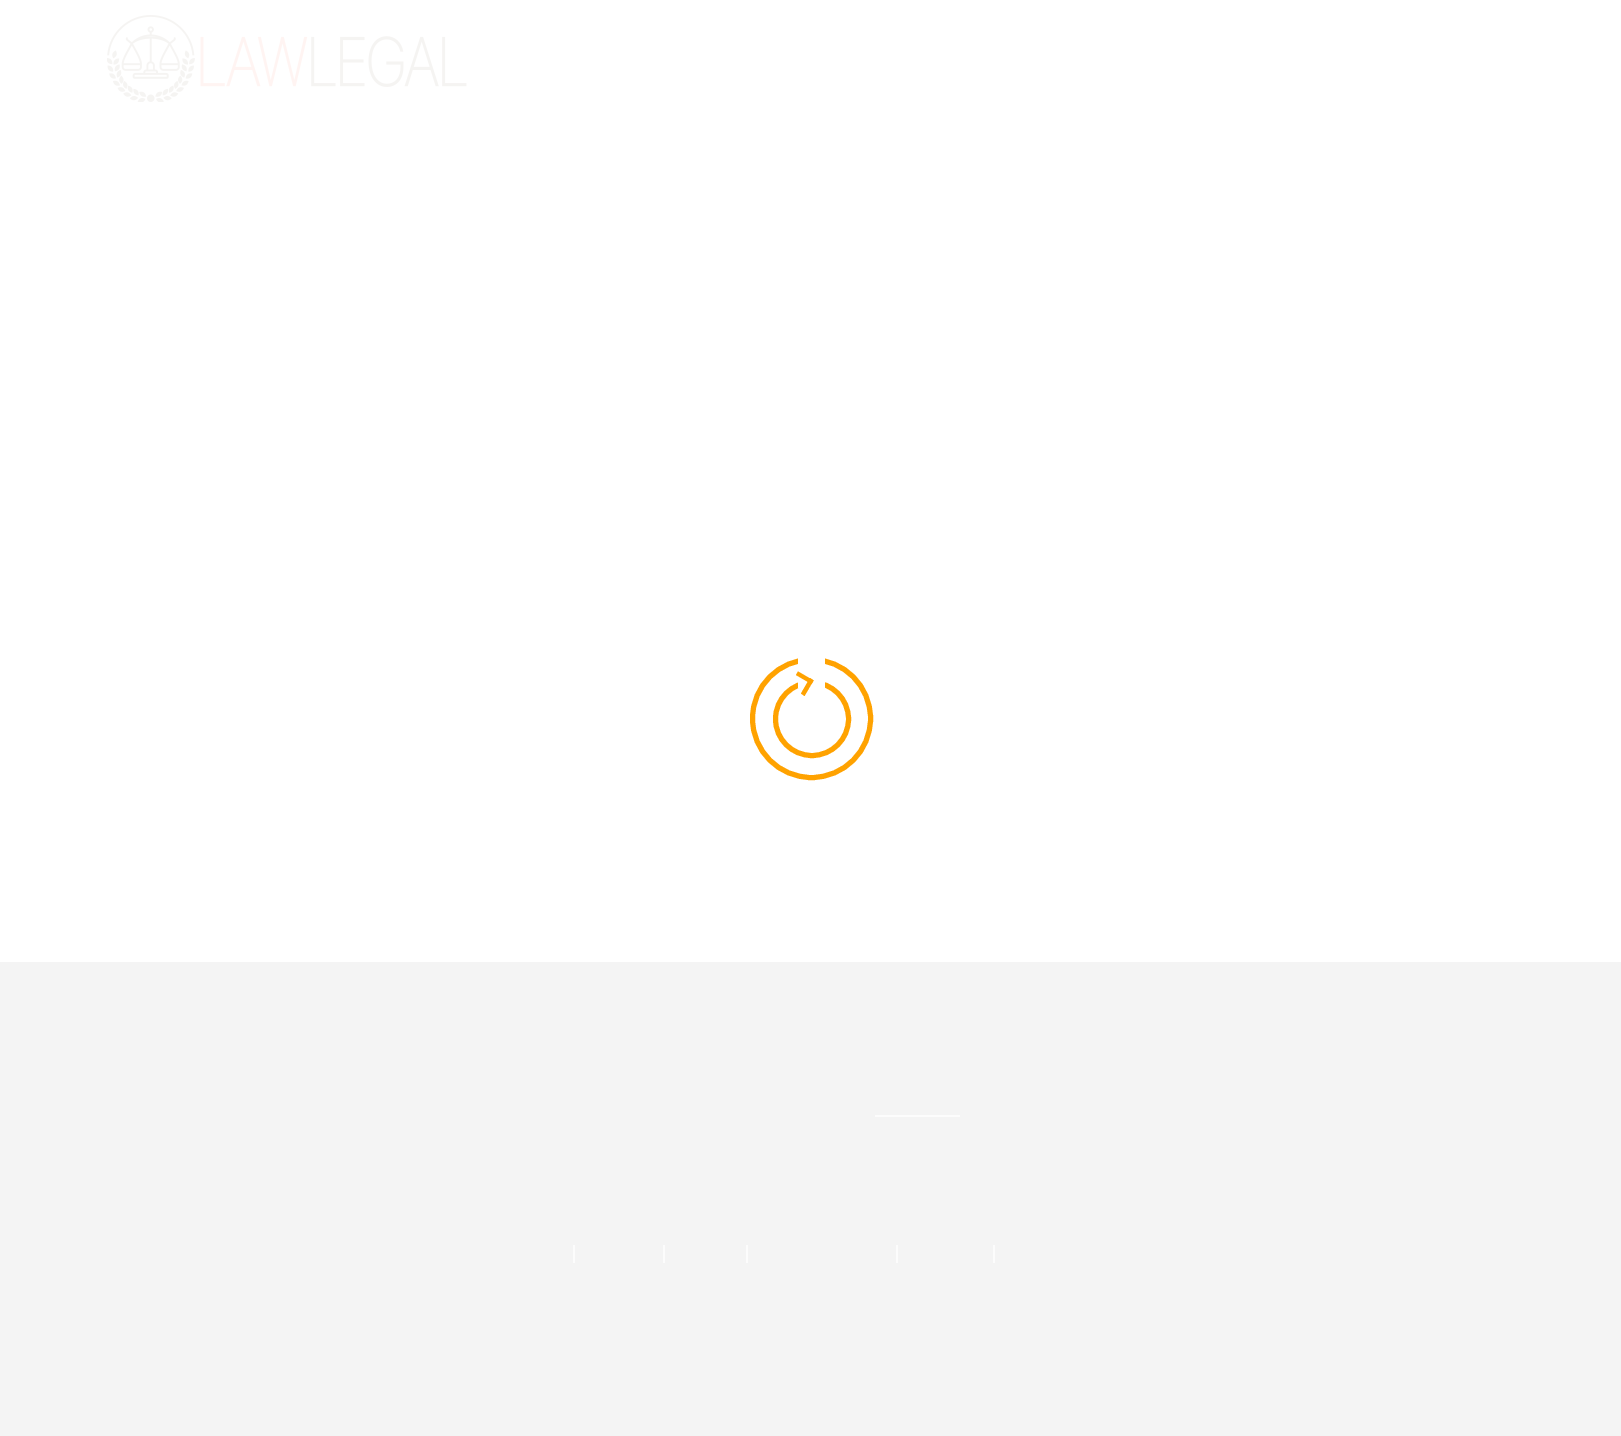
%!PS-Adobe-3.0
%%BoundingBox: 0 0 1621 1436
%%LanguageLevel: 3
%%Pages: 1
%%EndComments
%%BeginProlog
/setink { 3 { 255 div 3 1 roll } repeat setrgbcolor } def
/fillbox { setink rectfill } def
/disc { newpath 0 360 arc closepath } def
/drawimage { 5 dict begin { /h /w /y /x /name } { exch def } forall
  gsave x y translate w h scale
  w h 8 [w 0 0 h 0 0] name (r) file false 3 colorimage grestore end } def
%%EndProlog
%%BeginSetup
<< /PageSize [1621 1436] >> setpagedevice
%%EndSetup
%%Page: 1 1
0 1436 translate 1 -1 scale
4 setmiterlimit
0 0 1621 1436 255 255 255 fillbox
(assets/img1.rgb) 107 15 360 87 drawimage
0 962 1621 474 244 244 244 fillbox
875 1115 85 2 252 252 252 fillbox
573 1245 2 18 252 252 252 fillbox
663 1245 2 18 252 252 252 fillbox
746 1245 2 18 252 252 252 fillbox
896 1245 2 18 252 252 252 fillbox
993 1245 2 18 252 252 252 fillbox
255 162 0 setink
5 setlinewidth
811.5 718.5 59 disc stroke
798 657 27 7 255 255 255 fillbox
255 162 0 setink
812 719 36.5 disc stroke
798 680 27 8 255 255 255 fillbox
255 162 0 setink
798 671.5 moveto 813.5 680.5 lineto 811.5 684 lineto 796 675 lineto closepath fill
810 678 moveto 813.5 680.5 lineto 804.5 696 lineto 801 693.5 lineto closepath fill
showpage
%%EOF
